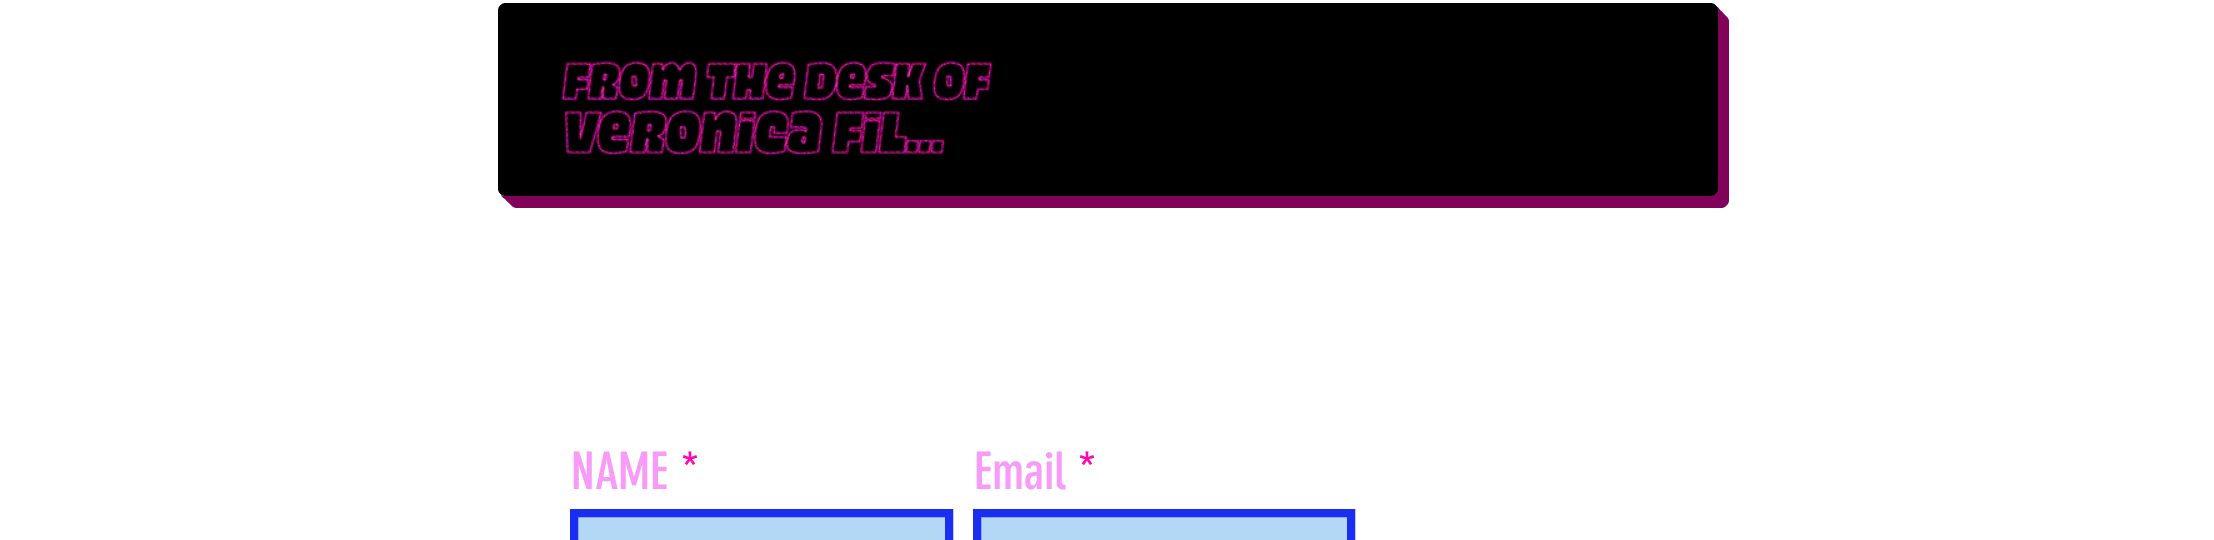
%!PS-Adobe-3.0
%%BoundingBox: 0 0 2214 540
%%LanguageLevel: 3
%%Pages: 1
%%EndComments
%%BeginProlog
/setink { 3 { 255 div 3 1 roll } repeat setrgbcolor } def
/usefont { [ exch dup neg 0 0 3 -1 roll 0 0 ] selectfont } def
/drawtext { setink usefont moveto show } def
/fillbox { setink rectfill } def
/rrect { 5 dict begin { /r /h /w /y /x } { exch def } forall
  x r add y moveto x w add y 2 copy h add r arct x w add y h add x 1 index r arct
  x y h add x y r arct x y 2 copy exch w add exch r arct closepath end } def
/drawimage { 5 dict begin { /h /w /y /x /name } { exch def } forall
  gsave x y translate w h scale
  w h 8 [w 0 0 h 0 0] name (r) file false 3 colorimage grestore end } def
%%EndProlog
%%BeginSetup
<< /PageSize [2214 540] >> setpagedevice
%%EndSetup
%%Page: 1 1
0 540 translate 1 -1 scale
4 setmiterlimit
0 0 2214 540 255 255 255 fillbox
128 2 89 setink
509 196 moveto 509 200 lineto 509 204 513 208 517 208 curveto 1721 208 lineto 1725 208 1729 204 1729 200 curveto 1729 22 lineto 1729 18 1725 14 1721 14 curveto 1718 14 lineto 1718 189 lineto 1718 193 1714 196 1710 196 curveto closepath fill
506 196 moveto 506 197 lineto 506 201 510 205 514 205 curveto 1718 205 lineto 1722 205 1726 201 1726 197 curveto 1726 19 lineto 1726 15 1722 11 1718 11 curveto 1718 189 lineto 1718 193 1714 196 1710 196 curveto closepath fill
504 196 moveto 505 200 508 203 512 203 curveto 1716 203 lineto 1720 203 1724 199 1724 195 curveto 1724 17 lineto 1724 13 1721 10 1717 9 curveto 1718 159 lineto 1718 173 1722 196 1710 196 curveto closepath fill
502 196 moveto 503 198 506 200 509 200 curveto 1713 200 lineto 1717 200 1721 196 1721 192 curveto 1721 14 lineto 1721 11 1719 8 1717 7 curveto 1718 10 lineto 1718 189 lineto 1718 193 1714 196 1710 196 curveto 505 196 lineto closepath fill
501 195 moveto 502 197 504 198 507 198 curveto 1711 198 lineto 1715 198 1719 194 1719 190 curveto 1719 12 lineto 1719 10 1718 8 1716 6 curveto 1717 7 1718 9 1718 10 curveto 1718 189 lineto 1718 193 1714 196 1710 196 curveto 505 196 lineto 503 196 502 196 501 195 curveto closepath fill
0 0 0 setink
498 3 1220 193 8 rrect fill
(assets/img1.rgb) 560 60 434 96 drawimage
(NAME) 571 489 /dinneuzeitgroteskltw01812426-Regular 51 248 154 247 drawtext
(*) 681 489 /dinneuzeitgroteskltw01812426-Regular 51 255 4 178 drawtext
179 216 246 setink
574 513 moveto 949 513 lineto 949 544 lineto 574 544 lineto closepath gsave fill grestore
26 45 243 setink
8 setlinewidth
stroke
(Email) 974 489 /dinneuzeitgroteskltw01812426-Regular 51 248 154 247 drawtext
(*) 1078 489 /dinneuzeitgroteskltw01812426-Regular 51 255 4 178 drawtext
179 216 246 setink
977 513 moveto 1351 513 lineto 1351 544 lineto 977 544 lineto closepath gsave fill grestore
26 45 243 setink
stroke
showpage
%%EOF
